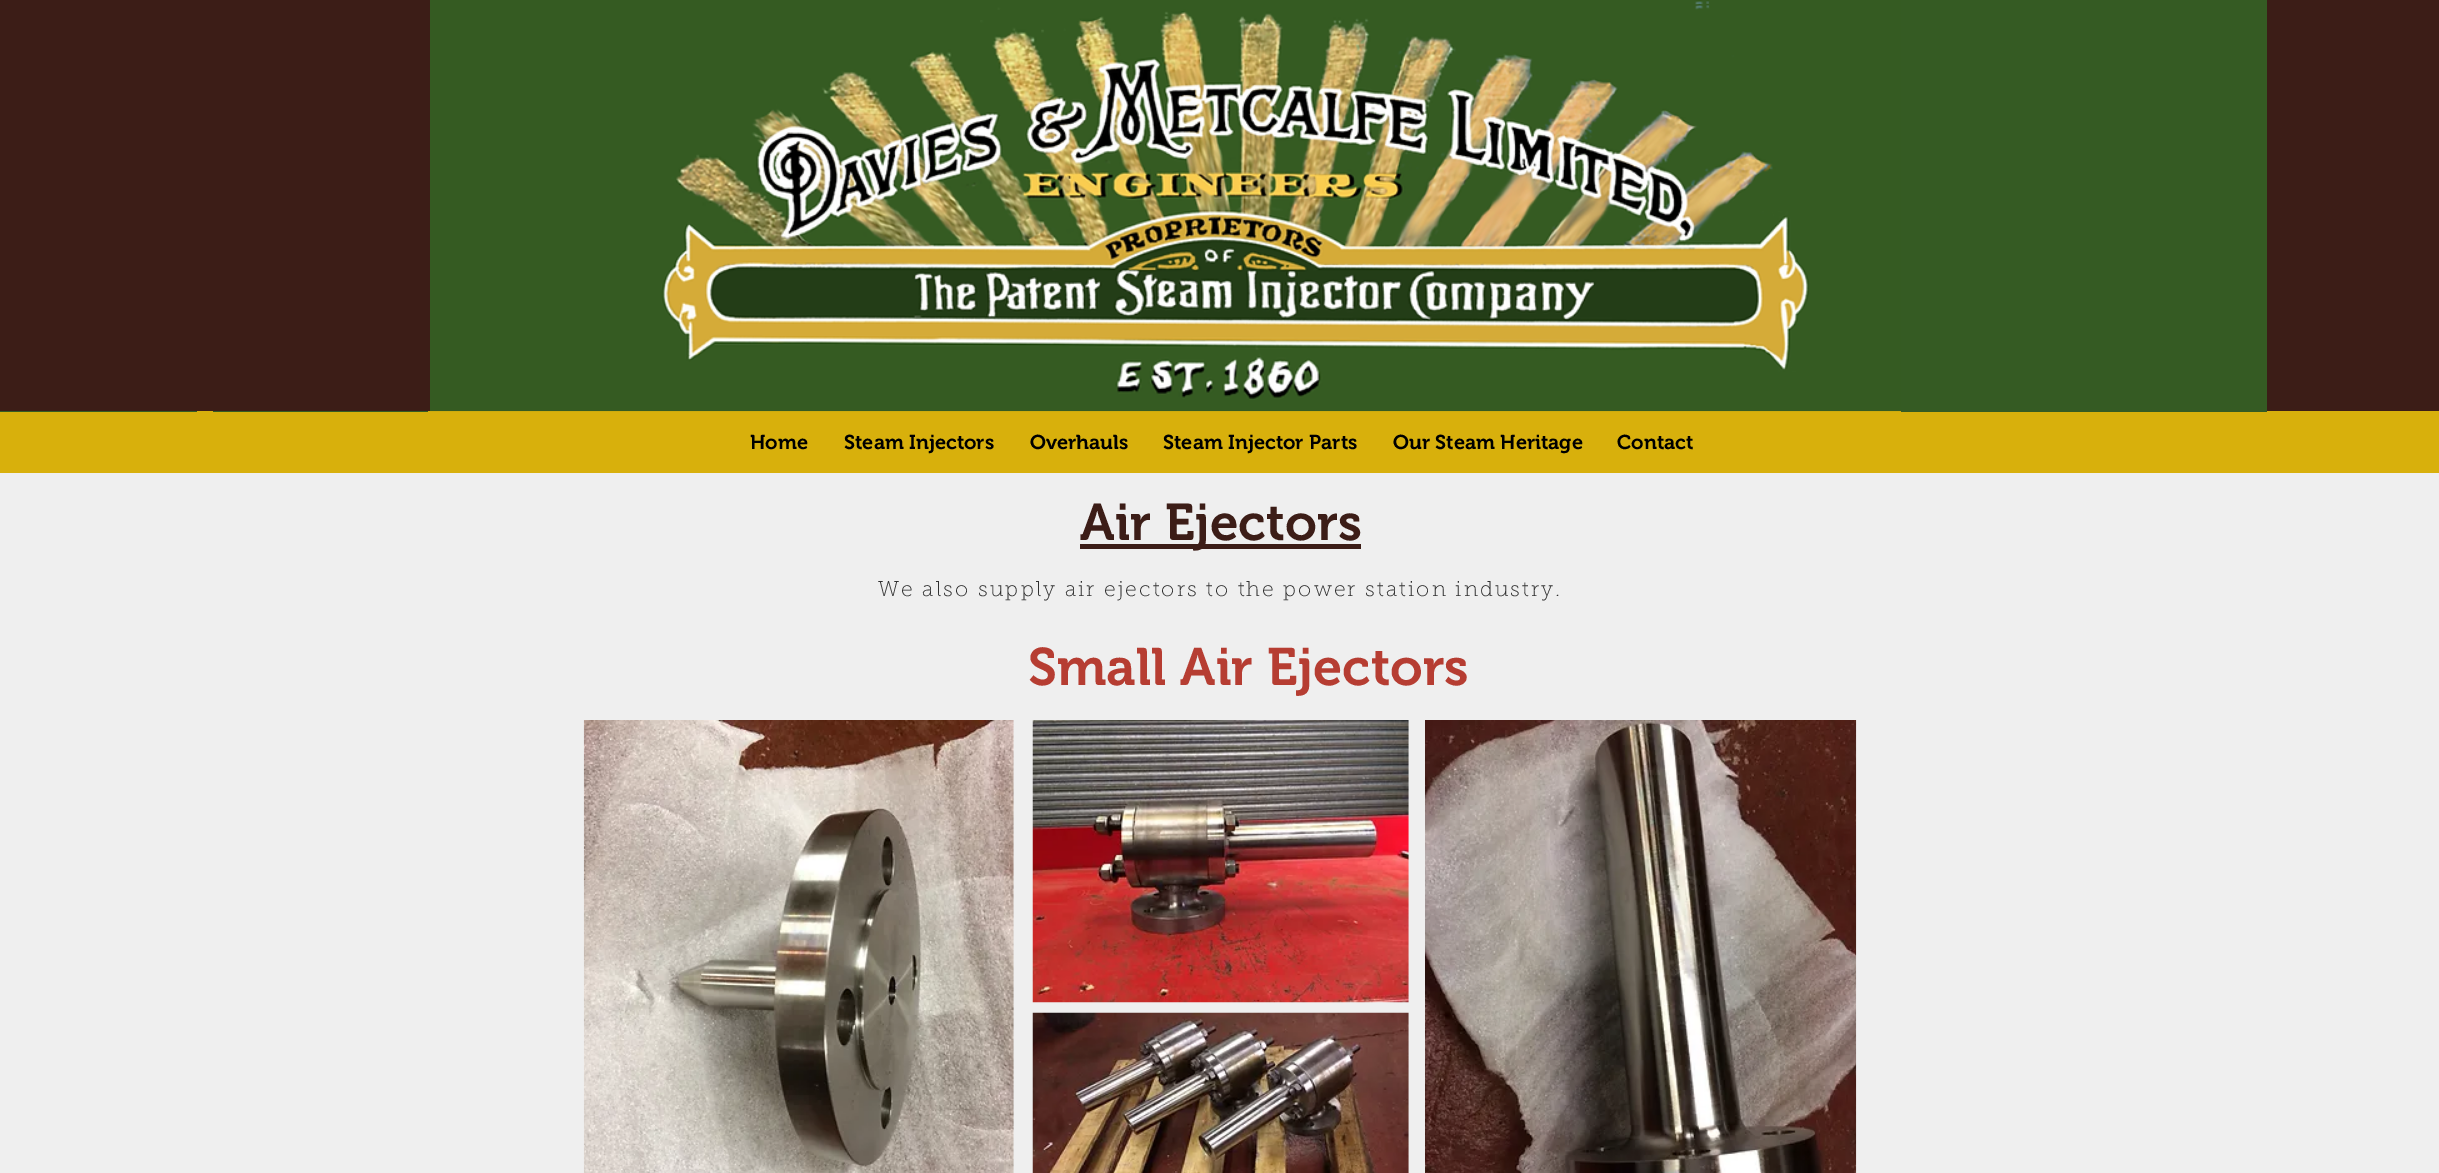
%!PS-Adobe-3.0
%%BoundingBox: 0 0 2439 1173
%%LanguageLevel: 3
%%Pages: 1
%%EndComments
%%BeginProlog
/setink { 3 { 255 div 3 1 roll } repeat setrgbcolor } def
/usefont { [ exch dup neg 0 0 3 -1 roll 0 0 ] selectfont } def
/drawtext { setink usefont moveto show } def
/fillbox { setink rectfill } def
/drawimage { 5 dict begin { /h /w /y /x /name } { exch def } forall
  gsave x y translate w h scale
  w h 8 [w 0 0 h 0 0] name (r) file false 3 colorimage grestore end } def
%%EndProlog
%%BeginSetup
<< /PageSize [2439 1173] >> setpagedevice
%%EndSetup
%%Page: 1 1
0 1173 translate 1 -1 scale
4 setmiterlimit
0 0 2439 1173 239 239 239 fillbox
0 411 2439 62 216 176 12 fillbox
0 0 2439 411 60 29 23 fillbox
0 411 197 1 53 91 35 fillbox
213 411 215 1 53 91 35 fillbox
(assets/img1.rgb) 430 0 1471 412 drawimage
1901 0 366 412 53 91 35 fillbox
(Home) 750 449 /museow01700-SemiBold 20 0 0 0 drawtext
(Steam Injectors) 844 449 /museow01700-SemiBold 20 0 0 0 drawtext
(Overhauls) 1030 449 /museow01700-SemiBold 20 0 0 0 drawtext
(Steam Injector Parts) 1163 449 /museow01700-SemiBold 20 0 0 0 drawtext
(Our Steam Heritage) 1393 449 /museow01700-SemiBold 20 0 0 0 drawtext
(Contact) 1617 449 /museow01700-SemiBold 20 0 0 0 drawtext
1080 544 281 5 60 29 23 fillbox
(Air Ejectors) 1080 540 /museow01700-SemiBold 51.25 60 29 23 drawtext
/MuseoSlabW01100-Thin 21.25 usefont
48 48 48 setink
878 596 moveto 2.12 0 (We also supply air ejectors to the power station industry.) ashow
(Small Air Ejectors) 1028 685 /museow01700-SemiBold 52.5 182 61 50 drawtext
(assets/img2.rgb) 583 720 431 453 drawimage
(assets/img3.rgb) 1032 720 377 283 drawimage
(assets/img4.rgb) 1425 720 432 453 drawimage
(assets/img5.rgb) 1032 1012 377 161 drawimage
showpage
%%EOF
